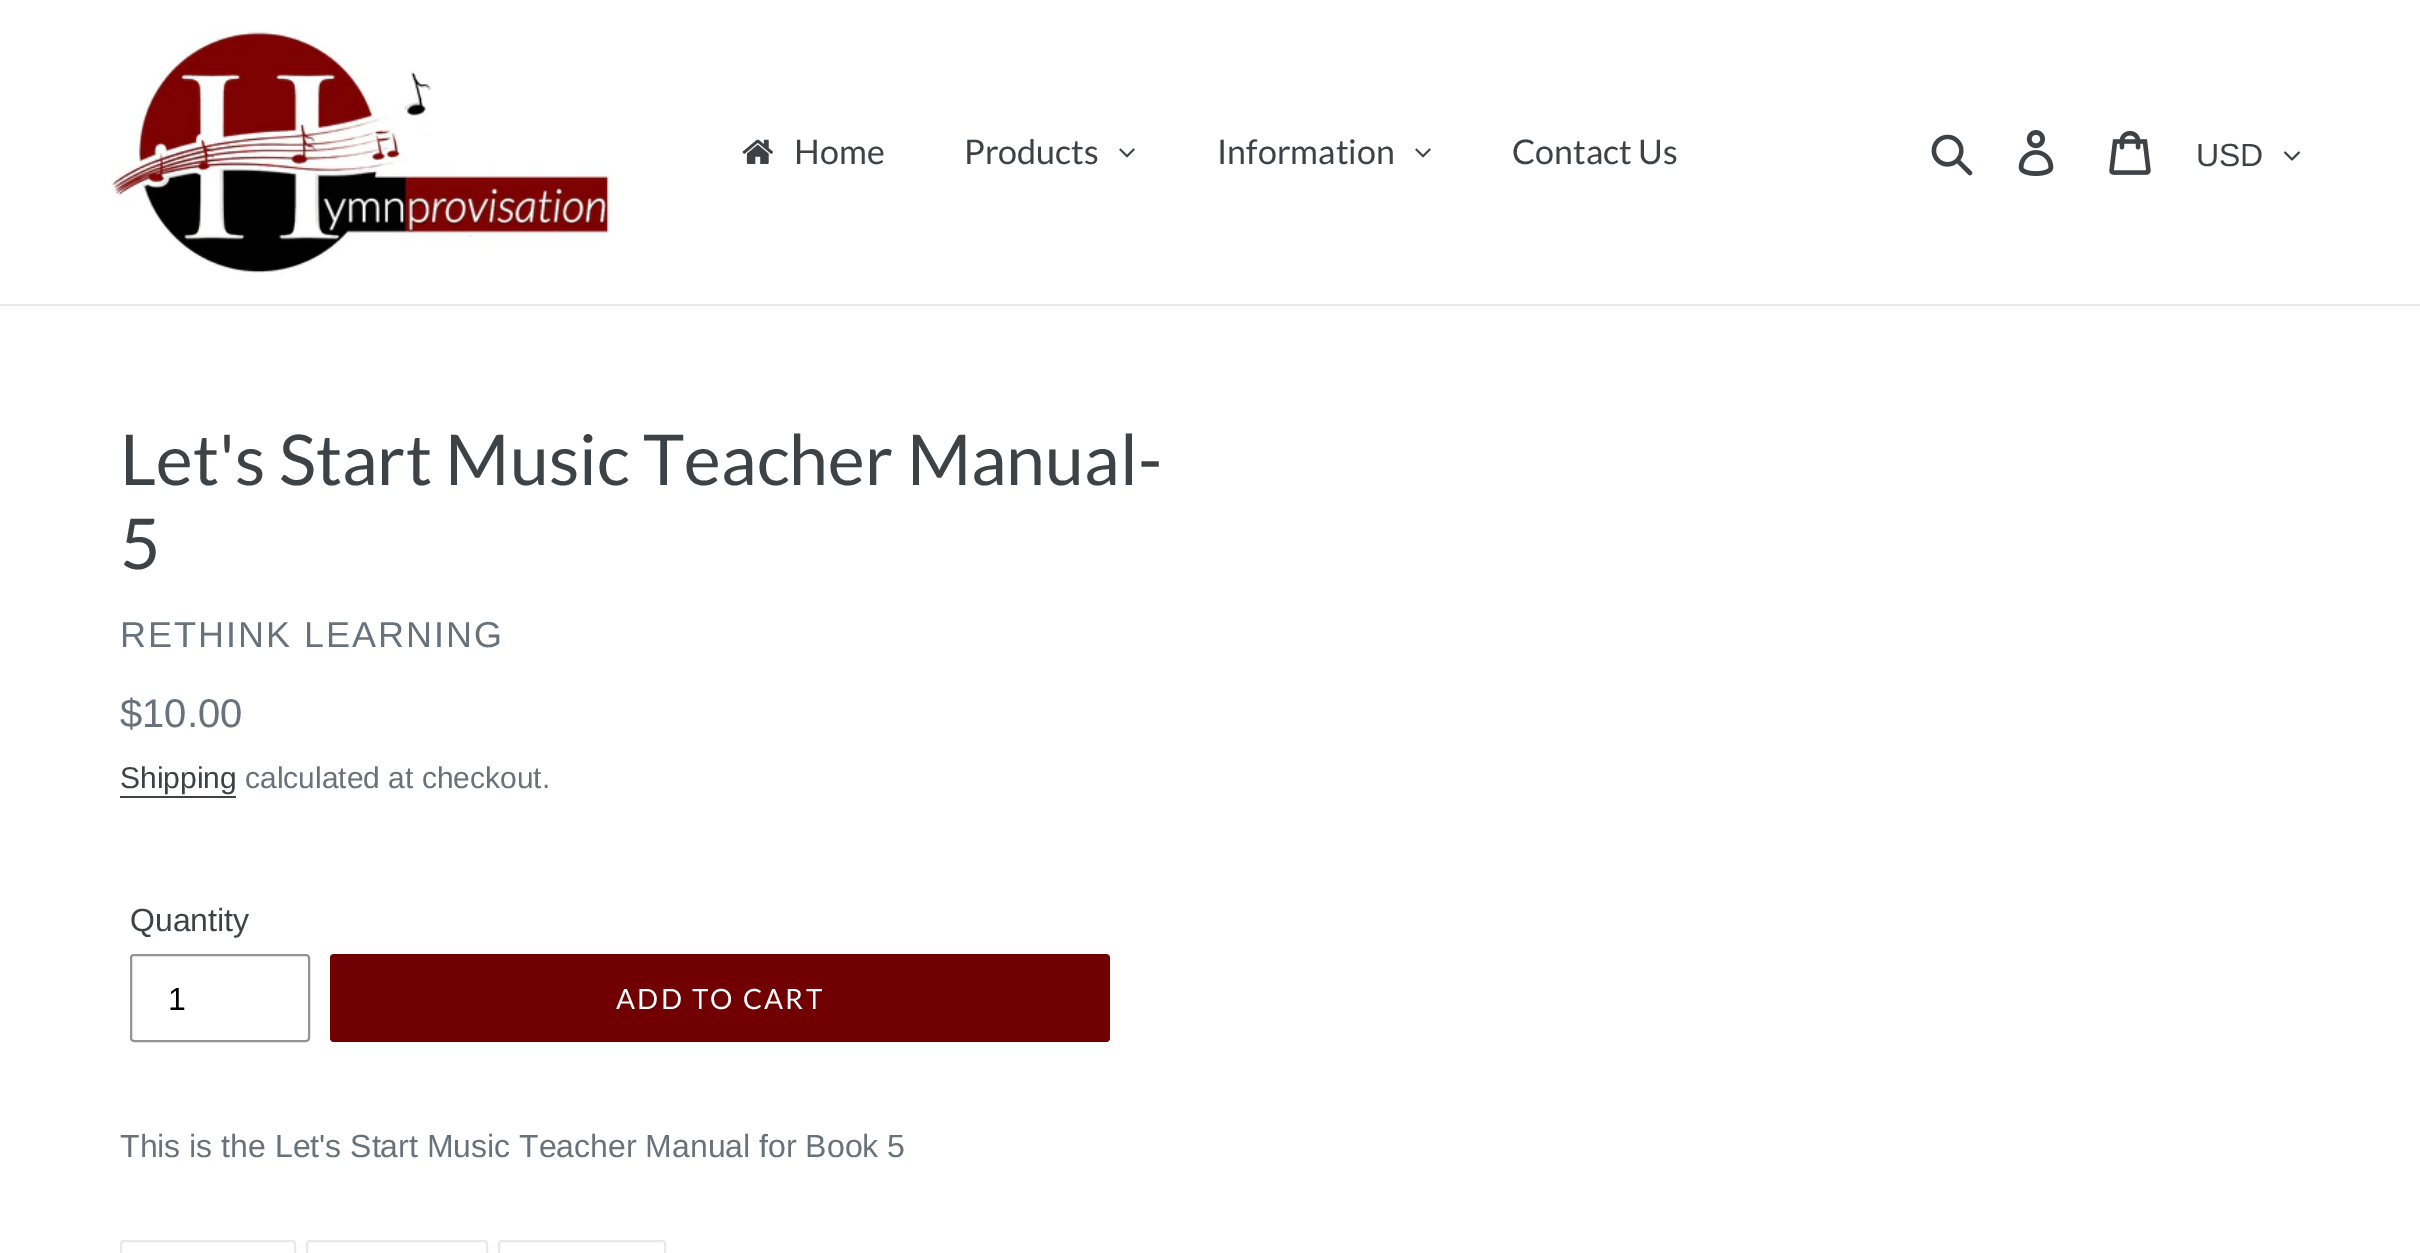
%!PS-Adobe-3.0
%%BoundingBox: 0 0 2420 1253
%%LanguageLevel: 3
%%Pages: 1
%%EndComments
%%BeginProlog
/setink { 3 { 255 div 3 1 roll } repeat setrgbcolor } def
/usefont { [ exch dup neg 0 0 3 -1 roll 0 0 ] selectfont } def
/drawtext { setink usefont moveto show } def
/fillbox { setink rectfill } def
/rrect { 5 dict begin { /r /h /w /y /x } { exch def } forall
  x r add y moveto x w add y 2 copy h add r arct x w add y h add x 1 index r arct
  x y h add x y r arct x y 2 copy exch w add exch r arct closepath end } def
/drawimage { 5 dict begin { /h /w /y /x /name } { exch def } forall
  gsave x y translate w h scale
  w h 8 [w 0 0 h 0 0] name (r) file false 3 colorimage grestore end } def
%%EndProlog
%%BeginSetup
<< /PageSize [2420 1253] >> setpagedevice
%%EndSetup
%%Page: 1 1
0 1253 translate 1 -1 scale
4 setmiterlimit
0 0 2420 1253 255 255 255 fillbox
0 304 2420 2 232 233 235 fillbox
(assets/img1.rgb) 110 30 500 244 drawimage
(assets/img2.rgb) 742 139 31 25 drawimage
(Home) 794 164 /Lato-Regular 34 61 66 70 drawtext
(Products) 964 164 /Lato-Regular 34 61 66 70 drawtext
(assets/img3.rgb) 1119 148 16 10 drawimage
(Information) 1217 164 /Lato-Regular 34 61 66 70 drawtext
(assets/img3.rgb) 1415 148 16 10 drawimage
(Contact Us) 1512 164 /Lato-Regular 34 61 66 70 drawtext
(assets/img4.rgb) 1931 134 42 42 drawimage
(assets/img5.rgb) 2018 130 36 46 drawimage
(assets/img6.rgb) 2109 130 42 45 drawimage
(USD) 2196 166 /LiberationSans-Regular 32 61 66 70 drawtext
(assets/img7.rgb) 2284 151 16 10 drawimage
(Let's Start Music Teacher Manual-) 120 485 /Lato-Regular 70 61 66 70 drawtext
(5) 120 569 /Lato-Regular 70 61 66 70 drawtext
/LiberationSans-Regular 36 usefont
105 114 123 setink
120 647 moveto 2 0 (RETHINK LEARNING) ashow
($10.00) 120 727 /LiberationSans-Regular 40 105 114 123 drawtext
(Shipping) 120 788 /LiberationSans-Regular 30 61 66 70 drawtext
120 796 116 2 61 66 70 fillbox
(calculated at checkout.) 245 788 /LiberationSans-Regular 30 105 114 123 drawtext
(Quantity) 130 931 /LiberationSans-Regular 32 61 66 70 drawtext
148 148 148 setink
2 setlinewidth
131 955 178 86 3 rrect stroke
(1) 168 1010 /LiberationSans-Regular 32 0 0 0 drawtext
113 0 2 setink
330 954 780 88 4 rrect fill
/Lato-Regular 28 usefont
255 255 255 setink
616 1009 moveto 2.25 0 (ADD TO CART) ashow
(This is the Let's Start Music Teacher Manual for Book 5) 120 1157 /LiberationSans-Regular 32 105 114 123 drawtext
232 233 235 setink
121 1241 174 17 3 rrect stroke
307 1241 180 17 3 rrect stroke
499 1241 166 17 3 rrect stroke
showpage
%%EOF
